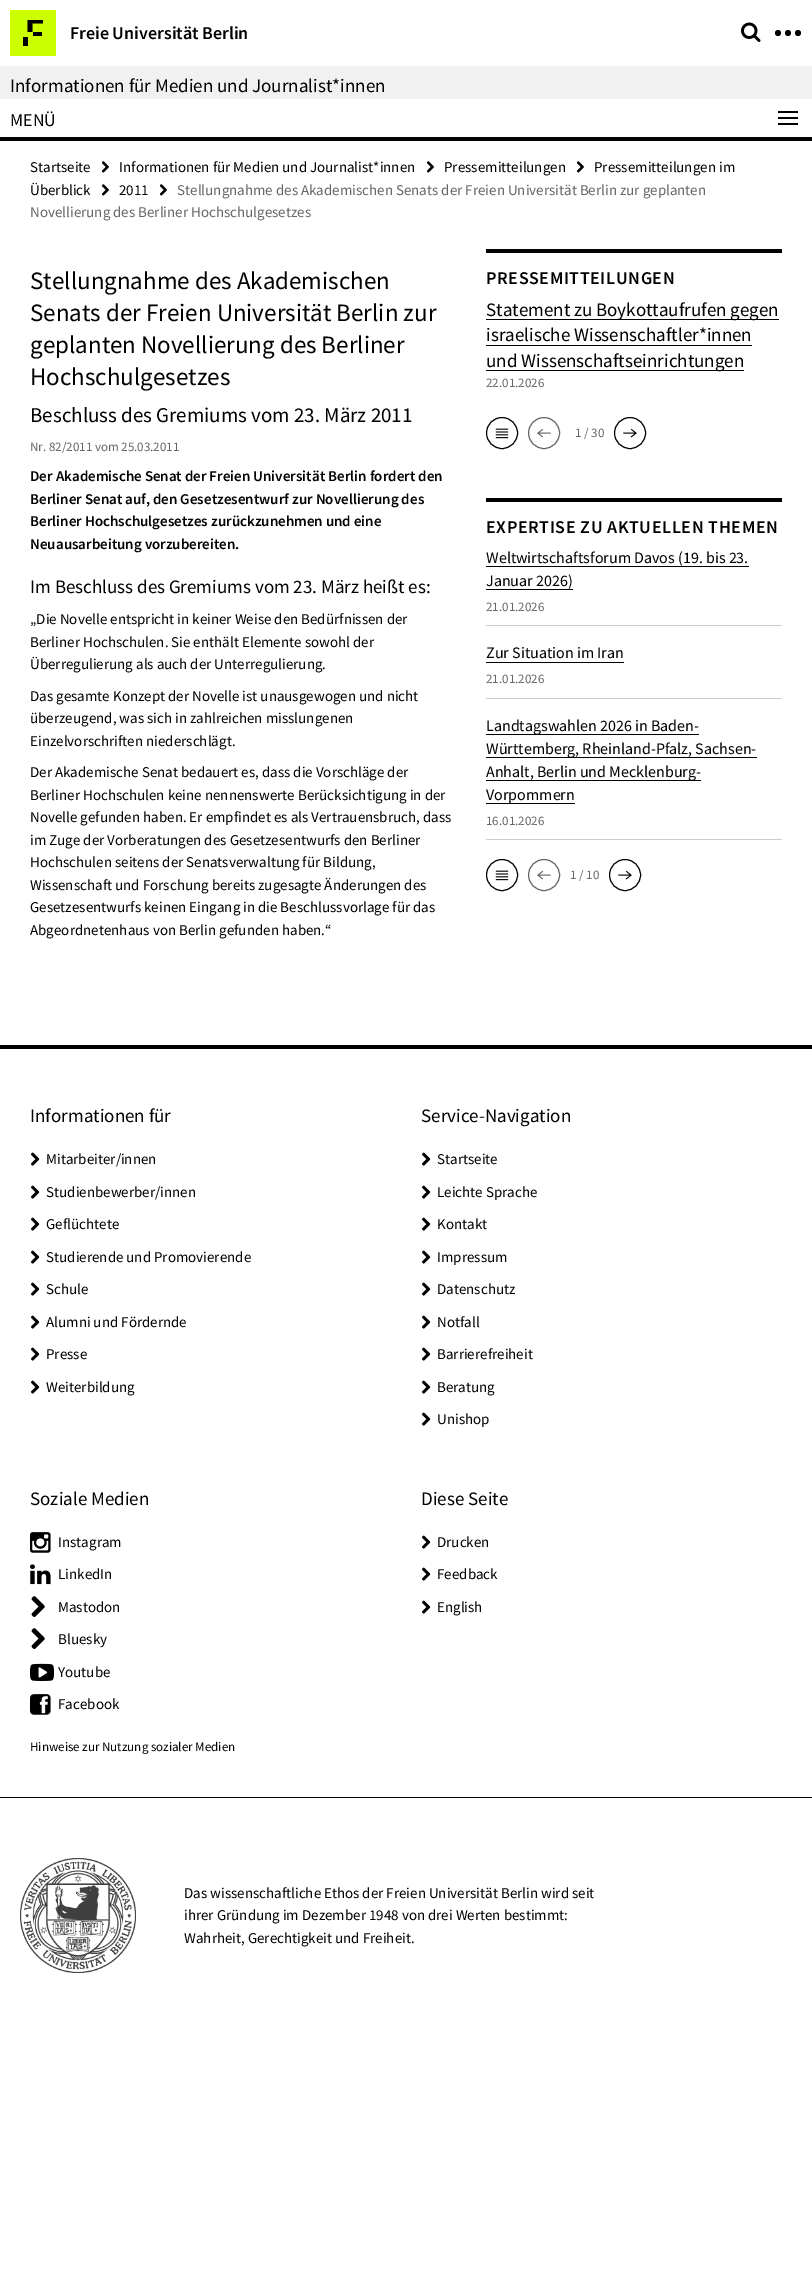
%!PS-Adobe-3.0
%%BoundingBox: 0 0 812 2294
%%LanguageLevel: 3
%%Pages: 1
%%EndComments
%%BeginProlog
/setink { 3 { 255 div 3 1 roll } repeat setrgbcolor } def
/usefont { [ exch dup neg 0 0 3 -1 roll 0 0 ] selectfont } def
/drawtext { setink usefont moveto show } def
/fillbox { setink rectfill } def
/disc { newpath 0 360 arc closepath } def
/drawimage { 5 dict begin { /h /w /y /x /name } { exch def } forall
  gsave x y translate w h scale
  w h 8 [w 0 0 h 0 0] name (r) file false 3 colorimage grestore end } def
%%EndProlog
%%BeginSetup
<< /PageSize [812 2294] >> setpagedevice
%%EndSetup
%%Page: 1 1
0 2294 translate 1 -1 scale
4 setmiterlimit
0 0 812 2294 255 255 255 fillbox
10 10 46 46 204 255 0 fillbox
0 0 0 setink
27.5 20 moveto 43 20 lineto 43 23.5 lineto 32.5 23.5 lineto 32.5 32 lineto 27.5 32 lineto closepath fill
33 32 9 4 0 0 0 fillbox
23 37 5 9 0 0 0 fillbox
(Freie Universität Berlin) 70 39 /SourceSansPro-SemiBold 18 0 0 0 drawtext
(assets/img1.rgb) 741 22 20 20 drawimage
778 33 3 disc fill
788 33 3 disc fill
798 33 3 disc fill
0 66 812 33 241 241 241 fillbox
(Informationen für Medien und Journalist*innen) 10 92 /SourceSansPro-Regular 19 0 0 0 drawtext
0 137 812 4 0 0 0 fillbox
(MENÜ) 10 126 /SourceSansPro-Regular 18 0 0 0 drawtext
778 111 20 2 0 0 0 fillbox
778 117 20 2 0 0 0 fillbox
778 123 20 2 0 0 0 fillbox
(Startseite) 30 172 /SourceSansPro-Regular 15 0 0 0 drawtext
(assets/img2.rgb) 101 161 8 12 drawimage
(Pressemitteilungen im) 594 172 /SourceSansPro-Regular 15 0 0 0 drawtext
(Überblick) 30 195 /SourceSansPro-Regular 15 0 0 0 drawtext
(assets/img2.rgb) 101 184 8 12 drawimage
(Informationen für Medien und Journalist*innen) 119 172 /SourceSansPro-Regular 15 0 0 0 drawtext
(assets/img2.rgb) 426 161 8 12 drawimage
(Pressemitteilungen) 444 172 /SourceSansPro-Regular 15 0 0 0 drawtext
(assets/img2.rgb) 576 161 8 12 drawimage
(2011) 119 195 /SourceSansPro-Regular 15 0 0 0 drawtext
(assets/img2.rgb) 159 184 8 12 drawimage
(Stellungnahme des Akademischen Senats der Freien Universität Berlin zur geplanten) 177 195 /SourceSansPro-Regular 15 102 102 102 drawtext
(Novellierung des Berliner Hochschulgesetzes) 30 217 /SourceSansPro-Regular 15 102 102 102 drawtext
(Stellungnahme des Akademischen) 30 289 /SourceSansPro-Regular 25 0 0 0 drawtext
(Senats der Freien Universität Berlin zur) 30 321 /SourceSansPro-Regular 25 0 0 0 drawtext
(geplanten Novellierung des Berliner) 30 353 /SourceSansPro-Regular 25 0 0 0 drawtext
(Hochschulgesetzes) 30 385 /SourceSansPro-Regular 25 0 0 0 drawtext
(Beschluss des Gremiums vom 23. März 2011) 30 422 /SourceSansPro-Regular 21 0 0 0 drawtext
(Nr. 82/2011 vom 25.03.2011) 30 451 /SourceSansPro-Regular 13 102 102 102 drawtext
(Der Akademische Senat der Freien Universität Berlin fordert den) 30 481 /SourceSansPro-SemiBold 15 0 0 0 drawtext
(Berliner Senat auf, den Gesetzesentwurf zur Novellierung des) 30 504 /SourceSansPro-SemiBold 15 0 0 0 drawtext
(Berliner Hochschulgesetzes zurückzunehmen und eine) 30 526 /SourceSansPro-SemiBold 15 0 0 0 drawtext
(Neuausarbeitung vorzubereiten.) 30 549 /SourceSansPro-SemiBold 15 0 0 0 drawtext
(Im Beschluss des Gremiums vom 23. März heißt es:) 30 593 /SourceSansPro-Regular 19 0 0 0 drawtext
(„Die Novelle entspricht in keiner Weise den Bedürfnissen der) 30 624 /SourceSansPro-Regular 15 0 0 0 drawtext
(Berliner Hochschulen. Sie enthält Elemente sowohl der) 30 647 /SourceSansPro-Regular 15 0 0 0 drawtext
(Überregulierung als auch der Unterregulierung.) 30 669 /SourceSansPro-Regular 15 0 0 0 drawtext
(Das gesamte Konzept der Novelle ist unausgewogen und nicht) 30 701 /SourceSansPro-Regular 15 0 0 0 drawtext
(überzeugend, was sich in zahlreichen misslungenen) 30 723 /SourceSansPro-Regular 15 0 0 0 drawtext
(Einzelvorschriften niederschlägt.) 30 746 /SourceSansPro-Regular 15 0 0 0 drawtext
(Der Akademische Senat bedauert es, dass die Vorschläge der) 30 777 /SourceSansPro-Regular 15 0 0 0 drawtext
(Berliner Hochschulen keine nennenswerte Berücksichtigung in der) 30 800 /SourceSansPro-Regular 15 0 0 0 drawtext
(Novelle gefunden haben. Er empfindet es als Vertrauensbruch, dass) 30 822 /SourceSansPro-Regular 15 0 0 0 drawtext
(im Zuge der Vorberatungen des Gesetzesentwurfs den Berliner) 30 845 /SourceSansPro-Regular 15 0 0 0 drawtext
(Hochschulen seitens der Senatsverwaltung für Bildung,) 30 867 /SourceSansPro-Regular 15 0 0 0 drawtext
(Wissenschaft und Forschung bereits zugesagte Änderungen des) 30 890 /SourceSansPro-Regular 15 0 0 0 drawtext
(Gesetzesentwurfs keinen Eingang in die Beschlussvorlage für das) 30 912 /SourceSansPro-Regular 15 0 0 0 drawtext
(Abgeordnetenhaus von Berlin gefunden haben.“) 30 935 /SourceSansPro-Regular 15 0 0 0 drawtext
486 249 296 4 0 0 0 fillbox
/SourceSansPro-SemiBold 18 usefont
486 284 moveto 0.6 0 (PRESSEMITTEILUNGEN) ashow
486 319 293 1 0 0 0 fillbox
(Statement zu Boykottaufrufen gegen) 486 316 /SourceSansPro-Regular 19 0 0 0 drawtext
(israelische Wissenschaftler*innen) 486 341 /SourceSansPro-Regular 19 0 0 0 drawtext
486 345 266 1 0 0 0 fillbox
486 370 258 1 0 0 0 fillbox
(und Wissenschaftseinrichtungen) 486 367 /SourceSansPro-Regular 19 0 0 0 drawtext
(22.01.2026) 486 387 /SourceSansPro-Regular 13 102 102 102 drawtext
0 0 0 setink
502 433 15.5 disc stroke
(assets/img3.rgb) 495 428 14 11 drawimage
102 102 102 setink
544 433 15.5 disc stroke
(assets/img4.rgb) 537 428 14 10 drawimage
(1 / 30) 575 437 /SourceSansPro-Regular 13 102 102 102 drawtext
0 0 0 setink
630 433 15.5 disc stroke
(assets/img5.rgb) 623 428 14 10 drawimage
486 498 296 4 0 0 0 fillbox
/SourceSansPro-SemiBold 18 usefont
486 533 moveto 0.6 0 (EXPERTISE ZU AKTUELLEN THEMEN) ashow
486 625 296 1 204 204 204 fillbox
(Weltwirtschaftsforum Davos \(19. bis 23.) 486 563 /SourceSansPro-Regular 16 0 0 0 drawtext
486 566 263 1 0 0 0 fillbox
(Januar 2026\)) 486 586 /SourceSansPro-Regular 16 0 0 0 drawtext
486 589 87 1 0 0 0 fillbox
(21.01.2026) 486 611 /SourceSansPro-Regular 13 102 102 102 drawtext
486 698 296 1 204 204 204 fillbox
(Zur Situation im Iran) 486 658 /SourceSansPro-Regular 16 0 0 0 drawtext
486 662 138 1 0 0 0 fillbox
(21.01.2026) 486 683 /SourceSansPro-Regular 13 102 102 102 drawtext
486 839 296 1 204 204 204 fillbox
486 734 213 1 0 0 0 fillbox
(Landtagswahlen 2026 in Baden-) 486 731 /SourceSansPro-Regular 16 0 0 0 drawtext
486 757 271 1 0 0 0 fillbox
(Württemberg, Rheinland-Pfalz, Sachsen-) 486 754 /SourceSansPro-Regular 16 0 0 0 drawtext
486 780 215 1 0 0 0 fillbox
(Anhalt, Berlin und Mecklenburg-) 486 777 /SourceSansPro-Regular 16 0 0 0 drawtext
486 803 89 1 0 0 0 fillbox
(Vorpommern) 486 800 /SourceSansPro-Regular 16 0 0 0 drawtext
(16.01.2026) 486 825 /SourceSansPro-Regular 13 102 102 102 drawtext
0 0 0 setink
502 875 15.5 disc stroke
(assets/img3.rgb) 495 870 14 11 drawimage
102 102 102 setink
544 875 15.5 disc stroke
(assets/img4.rgb) 537 870 14 10 drawimage
(1 / 10) 570 879 /SourceSansPro-Regular 13 102 102 102 drawtext
0 0 0 setink
625 875 15.5 disc stroke
(assets/img5.rgb) 618 870 14 10 drawimage
0 1045 812 4 0 0 0 fillbox
0 1797 812 1 0 0 0 fillbox
(Informationen für) 30 1122 /SourceSansPro-Regular 19 0 0 0 drawtext
(assets/img6.rgb) 31 1152 9 14 drawimage
(Mitarbeiter/innen) 46 1164 /SourceSansPro-Regular 15 0 0 0 drawtext
(assets/img6.rgb) 31 1185 9 14 drawimage
(Studienbewerber/innen) 46 1197 /SourceSansPro-Regular 15 0 0 0 drawtext
(assets/img6.rgb) 31 1217 9 14 drawimage
(Geflüchtete) 46 1229 /SourceSansPro-Regular 15 0 0 0 drawtext
(assets/img6.rgb) 31 1250 9 14 drawimage
(Studierende und Promovierende) 46 1262 /SourceSansPro-Regular 15 0 0 0 drawtext
(assets/img6.rgb) 31 1282 9 14 drawimage
(Schule) 46 1294 /SourceSansPro-Regular 15 0 0 0 drawtext
(assets/img6.rgb) 31 1315 9 14 drawimage
(Alumni und Fördernde) 46 1327 /SourceSansPro-Regular 15 0 0 0 drawtext
(assets/img6.rgb) 31 1347 9 14 drawimage
(Presse) 46 1359 /SourceSansPro-Regular 15 0 0 0 drawtext
(assets/img6.rgb) 31 1380 9 14 drawimage
(Weiterbildung) 46 1392 /SourceSansPro-Regular 15 0 0 0 drawtext
(Service-Navigation) 421 1122 /SourceSansPro-Regular 19 0 0 0 drawtext
(assets/img6.rgb) 422 1152 9 14 drawimage
(Startseite) 437 1164 /SourceSansPro-Regular 15 0 0 0 drawtext
(assets/img6.rgb) 422 1185 9 14 drawimage
(Leichte Sprache) 437 1197 /SourceSansPro-Regular 15 0 0 0 drawtext
(assets/img6.rgb) 422 1217 9 14 drawimage
(Kontakt) 437 1229 /SourceSansPro-Regular 15 0 0 0 drawtext
(assets/img6.rgb) 422 1250 9 14 drawimage
(Impressum) 437 1262 /SourceSansPro-Regular 15 0 0 0 drawtext
(assets/img6.rgb) 422 1282 9 14 drawimage
(Datenschutz) 437 1294 /SourceSansPro-Regular 15 0 0 0 drawtext
(assets/img6.rgb) 422 1315 9 14 drawimage
(Notfall) 437 1327 /SourceSansPro-Regular 15 0 0 0 drawtext
(assets/img6.rgb) 422 1347 9 14 drawimage
(Barrierefreiheit) 437 1359 /SourceSansPro-Regular 15 0 0 0 drawtext
(assets/img6.rgb) 422 1380 9 14 drawimage
(Beratung) 437 1392 /SourceSansPro-Regular 15 0 0 0 drawtext
(assets/img6.rgb) 422 1412 9 14 drawimage
(Unishop) 437 1424 /SourceSansPro-Regular 15 0 0 0 drawtext
(Soziale Medien) 30 1505 /SourceSansPro-Regular 19 0 0 0 drawtext
(assets/img7.rgb) 30 1532 21 21 drawimage
(Instagram) 58 1547 /SourceSansPro-Regular 15 0 0 0 drawtext
(assets/img8.rgb) 30 1564 21 21 drawimage
(LinkedIn) 58 1579 /SourceSansPro-Regular 15 0 0 0 drawtext
(assets/img9.rgb) 31 1596 14 21 drawimage
(Mastodon) 58 1612 /SourceSansPro-Regular 15 0 0 0 drawtext
(assets/img9.rgb) 31 1628 14 21 drawimage
(Bluesky) 58 1644 /SourceSansPro-Regular 15 0 0 0 drawtext
(assets/img10.rgb) 30 1663 24 18 drawimage
(Youtube) 58 1677 /SourceSansPro-Regular 15 0 0 0 drawtext
(assets/img11.rgb) 30 1694 21 21 drawimage
(Facebook) 58 1709 /SourceSansPro-Regular 15 0 0 0 drawtext
(Hinweise zur Nutzung sozialer Medien) 30 1751 /SourceSansPro-Regular 13 0 0 0 drawtext
(Diese Seite) 421 1505 /SourceSansPro-Regular 19 0 0 0 drawtext
(assets/img6.rgb) 422 1535 9 14 drawimage
(Drucken) 437 1547 /SourceSansPro-Regular 15 0 0 0 drawtext
(assets/img6.rgb) 422 1567 9 14 drawimage
(Feedback) 437 1579 /SourceSansPro-Regular 15 0 0 0 drawtext
(assets/img6.rgb) 422 1600 9 14 drawimage
(English) 437 1612 /SourceSansPro-Regular 15 0 0 0 drawtext
(assets/img12.rgb) 20 1858 116 115 drawimage
(Das wissenschaftliche Ethos der Freien Universität Berlin wird seit) 184 1898 /SourceSansPro-Regular 15 0 0 0 drawtext
(ihrer Gründung im Dezember 1948 von drei Werten bestimmt:) 184 1920 /SourceSansPro-Regular 15 0 0 0 drawtext
(Wahrheit, Gerechtigkeit und Freiheit.) 184 1943 /SourceSansPro-Regular 15 0 0 0 drawtext
showpage
%%EOF
